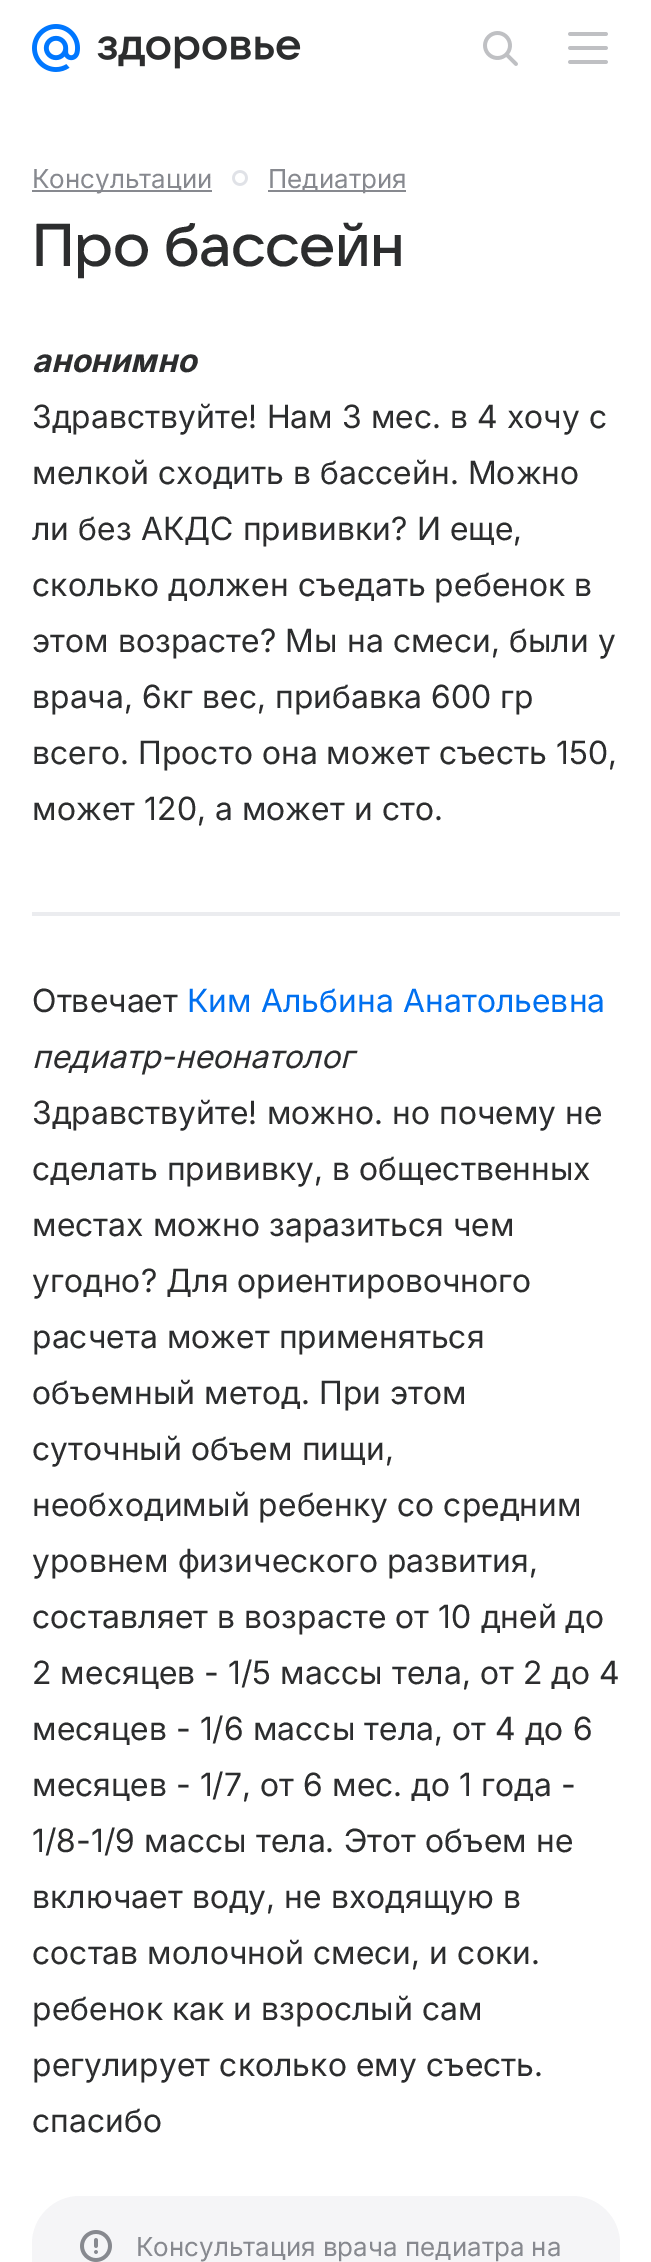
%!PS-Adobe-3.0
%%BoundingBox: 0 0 651 2262
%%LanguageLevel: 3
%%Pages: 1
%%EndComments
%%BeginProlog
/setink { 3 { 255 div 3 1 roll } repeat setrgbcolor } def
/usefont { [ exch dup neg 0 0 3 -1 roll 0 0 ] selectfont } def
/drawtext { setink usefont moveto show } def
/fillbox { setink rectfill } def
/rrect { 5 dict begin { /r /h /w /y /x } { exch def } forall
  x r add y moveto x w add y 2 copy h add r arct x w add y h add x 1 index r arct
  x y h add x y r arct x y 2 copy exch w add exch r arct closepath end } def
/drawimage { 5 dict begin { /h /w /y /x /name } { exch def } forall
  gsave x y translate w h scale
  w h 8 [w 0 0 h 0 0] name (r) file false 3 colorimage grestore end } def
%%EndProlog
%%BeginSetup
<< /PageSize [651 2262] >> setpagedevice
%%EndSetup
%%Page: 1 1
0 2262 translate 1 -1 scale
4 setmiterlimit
0 0 651 2262 255 255 255 fillbox
(assets/img1.rgb) 32 24 48 48 drawimage
(assets/img2.rgb) 97 36 204 33 drawimage
(assets/img3.rgb) 483 31 35 35 drawimage
(assets/img4.rgb) 568 32 40 32 drawimage
32 190 180 2 135 137 143 fillbox
(Консультации) 32 188 /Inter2-Regular 26 135 137 143 drawtext
(assets/img5.rgb) 232 170 16 16 drawimage
268 190 138 2 135 137 143 fillbox
(Педиатрия) 268 188 /Inter2-Regular 26 135 137 143 drawtext
/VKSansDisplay-Medium 60 usefont
44 45 46 setink
32 266 moveto -0.25 0 (Про бассейн) ashow
/Inter-BoldItalic 32 usefont
32 372 moveto 0.1 0 (анонимно) ashow
/Inter-Regular 32 usefont
32 428 moveto 0.1 0 (Здравствуйте! Нам 3 мес. в 4 хочу с) ashow
32 484 moveto 0.1 0 (мелкой сходить в бассейн. Можно) ashow
32 540 moveto 0.1 0 (ли без АКДС прививки? И еще,) ashow
32 596 moveto 0.1 0 (сколько должен съедать ребенок в) ashow
32 652 moveto 0.1 0 (этом возрасте? Мы на смеси, были у) ashow
32 708 moveto 0.1 0 (врача, 6кг вес, прибавка 600 гр) ashow
32 764 moveto 0.1 0 (всего. Просто она может съесть 150,) ashow
32 820 moveto 0.1 0 (может 120, а может и сто.) ashow
32 912 588 4 235 236 239 fillbox
44 45 46 setink
32 1012 moveto 0.1 0 (Отвечает) ashow
0 112 240 setink
187 1012 moveto 0.1 0 (Ким Альбина Анатольевна) ashow
/Inter-Italic 32 usefont
44 45 46 setink
32 1068 moveto 0.1 0 (педиатр-неонатолог) ashow
/Inter-Regular 32 usefont
32 1124 moveto 0.1 0 (Здравствуйте! можно. но почему не) ashow
32 1180 moveto 0.1 0 (сделать прививку, в общественных) ashow
32 1236 moveto 0.1 0 (местах можно заразиться чем) ashow
32 1292 moveto 0.1 0 (угодно? Для ориентировочного) ashow
32 1348 moveto 0.1 0 (расчета может применяться) ashow
32 1404 moveto 0.1 0 (объемный метод. При этом) ashow
32 1460 moveto 0.1 0 (суточный объем пищи,) ashow
32 1516 moveto 0.1 0 (необходимый ребенку со средним) ashow
32 1572 moveto 0.1 0 (уровнем физического развития,) ashow
32 1628 moveto 0.1 0 (составляет в возрасте от 10 дней до) ashow
32 1684 moveto 0.1 0 (2 месяцев - 1/5 массы тела, от 2 до 4) ashow
32 1740 moveto 0.1 0 (месяцев - 1/6 массы тела, от 4 до 6) ashow
32 1796 moveto 0.1 0 (месяцев - 1/7, от 6 мес. до 1 года -) ashow
32 1852 moveto 0.1 0 (1/8-1/9 массы тела. Этот объем не) ashow
32 1908 moveto 0.1 0 (включает воду, не входящую в) ashow
32 1964 moveto 0.1 0 (состав молочной смеси, и соки.) ashow
32 2020 moveto 0.1 0 (ребенок как и взрослый сам) ashow
32 2076 moveto 0.1 0 (регулирует сколько ему съесть.) ashow
32 2132 moveto 0.1 0 (спасибо) ashow
245 245 247 setink
32 2196 588 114 48 rrect fill
(assets/img6.rgb) 80 2230 32 32 drawimage
(Консультация врача педиатра на) 136 2256 /Inter2-Regular 26 135 137 143 drawtext
showpage
%%EOF
